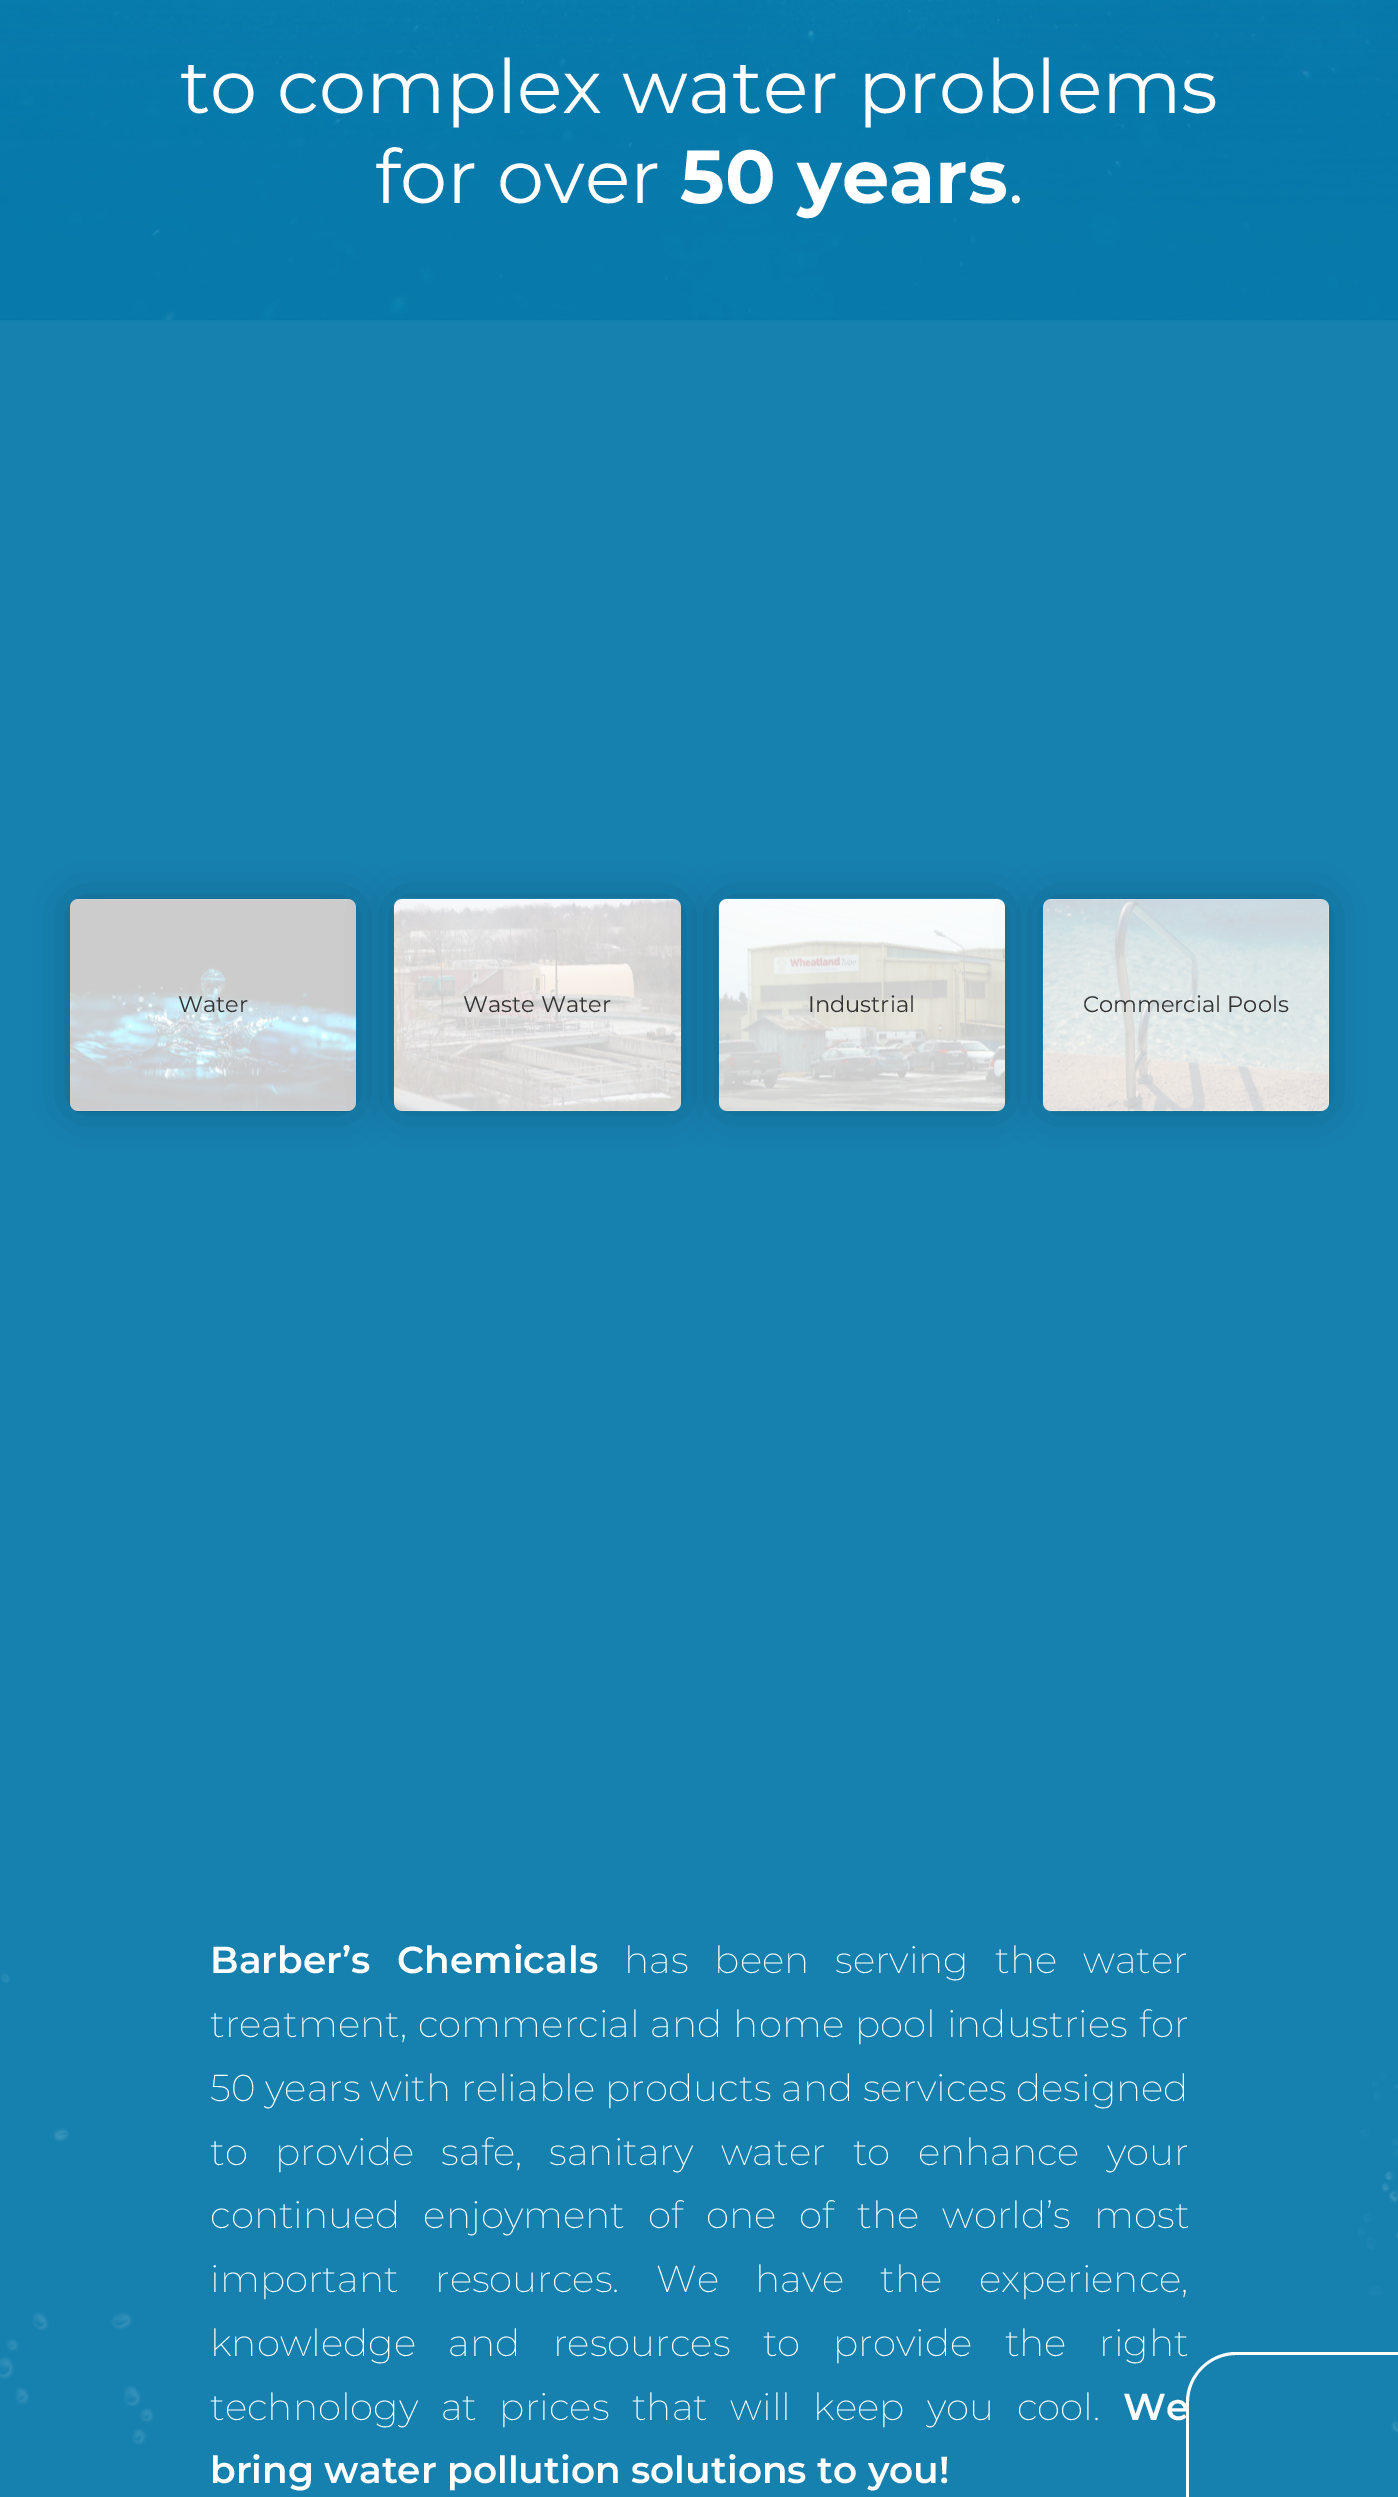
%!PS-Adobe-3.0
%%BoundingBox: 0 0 1398 2497
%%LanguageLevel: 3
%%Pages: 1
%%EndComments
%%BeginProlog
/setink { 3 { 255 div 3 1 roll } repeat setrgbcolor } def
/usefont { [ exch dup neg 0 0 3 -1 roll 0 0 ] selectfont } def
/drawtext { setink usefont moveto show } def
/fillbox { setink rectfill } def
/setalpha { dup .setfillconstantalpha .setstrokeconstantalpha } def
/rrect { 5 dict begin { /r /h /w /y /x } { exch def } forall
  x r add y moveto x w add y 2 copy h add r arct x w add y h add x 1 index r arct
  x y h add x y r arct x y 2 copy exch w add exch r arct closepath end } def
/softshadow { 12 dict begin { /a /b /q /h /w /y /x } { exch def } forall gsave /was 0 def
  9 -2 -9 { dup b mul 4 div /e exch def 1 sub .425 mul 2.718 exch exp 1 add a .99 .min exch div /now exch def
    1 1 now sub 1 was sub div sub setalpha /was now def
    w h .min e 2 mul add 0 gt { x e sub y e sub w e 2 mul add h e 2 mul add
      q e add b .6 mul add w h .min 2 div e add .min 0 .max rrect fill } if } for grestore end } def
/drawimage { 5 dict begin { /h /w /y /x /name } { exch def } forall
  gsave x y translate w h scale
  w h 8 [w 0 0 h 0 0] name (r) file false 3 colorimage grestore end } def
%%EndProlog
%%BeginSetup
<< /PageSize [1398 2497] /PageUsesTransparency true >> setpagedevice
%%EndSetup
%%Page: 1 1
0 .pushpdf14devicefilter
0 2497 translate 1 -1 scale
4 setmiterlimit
0 0 1398 2497 22 129 175 fillbox
(assets/img1.rgb) 0 0 1398 320 drawimage
(assets/img2.rgb) 0 0 1398 321 drawimage
(to complex water problems) 180 113 /Montserrat-Regular 75 255 255 255 drawtext
(for over) 375 203 /Montserrat-Regular 75 255 255 255 drawtext
(50 years) 680 203 /Montserrat-Bold 75 255 255 255 drawtext
(.) 1008 203 /Montserrat-Regular 75 255 255 255 drawtext
0 0 0 setink
70 899 286 212 8 22 0.2 softshadow
255 255 255 setink
70 899 286 212 8 rrect fill
(assets/img3.rgb) 70 898 287 214 drawimage
(Water) 178 1012 /Montserrat-Regular 22.5 51 51 51 drawtext
0 0 0 setink
394 899 287 212 8 22 0.2 softshadow
255 255 255 setink
394 899 287 212 8 rrect fill
(assets/img4.rgb) 393 898 288 214 drawimage
(Waste Water) 463 1012 /Montserrat-Regular 22.5 51 51 51 drawtext
0 0 0 setink
719 899 286 212 8 22 0.2 softshadow
255 255 255 setink
719 899 286 212 8 rrect fill
(assets/img5.rgb) 718 898 287 214 drawimage
(Industrial) 808 1012 /Montserrat-Regular 22.5 51 51 51 drawtext
0 0 0 setink
1043 899 286 212 8 22 0.2 softshadow
255 255 255 setink
1043 899 286 212 8 rrect fill
(assets/img6.rgb) 1042 898 287 214 drawimage
(Commercial Pools) 1083 1012 /Montserrat-Regular 22.5 51 51 51 drawtext
(assets/img7.rgb) 0 1973 1398 472 drawimage
/Montserrat-SemiBold 37.5 usefont
255 255 255 setink
210 1973 moveto 16.5 0 32 (Barber’s Chemicals) widthshow
/Montserrat-ExtraLight 37.5 usefont
624 1973 moveto 16.5 0 32 (has been serving the water) widthshow
210 2037 moveto 1.5 0 32 (treatment, commercial and home pool industries for) widthshow
210 2101 moveto 0.25 0 32 (50 years with reliable products and services designed) widthshow
210 2165 moveto 17.75 0 32 (to provide safe, sanitary water to enhance your) widthshow
210 2228 moveto 13.5 0 32 (continued enjoyment of one of the world’s most) widthshow
210 2292 moveto 27 0 32 (important resources. We have the experience,) widthshow
210 2356 moveto 23 0 32 (knowledge and resources to provide the right) widthshow
210 2420 moveto 13 0 32 (technology at prices that will keep you cool.) widthshow
(We) 1123 2420 /Montserrat-SemiBold 37.5 255 255 255 drawtext
(bring water pollution solutions to you!) 210 2483 /Montserrat-SemiBold 37.5 255 255 255 drawtext
0 2415 moveto 1189 2415 lineto 1189 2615 lineto 1189 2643 1166 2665 1139 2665 curveto 0 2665 lineto closepath 0 2415 moveto 1186 2415 lineto 1186 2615 lineto 1186 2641 1165 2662 1139 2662 curveto 0 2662 lineto closepath eofill
1236 2352 moveto 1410 2352 lineto 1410 2478 lineto 1186 2478 lineto 1186 2402 lineto 1186 2375 1209 2352 1236 2352 curveto closepath 1236 2355 moveto 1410 2355 lineto 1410 2478 lineto 1189 2478 lineto 1189 2402 lineto 1189 2376 1210 2355 1236 2355 curveto closepath eofill
.poppdf14devicefilter showpage
%%EOF
